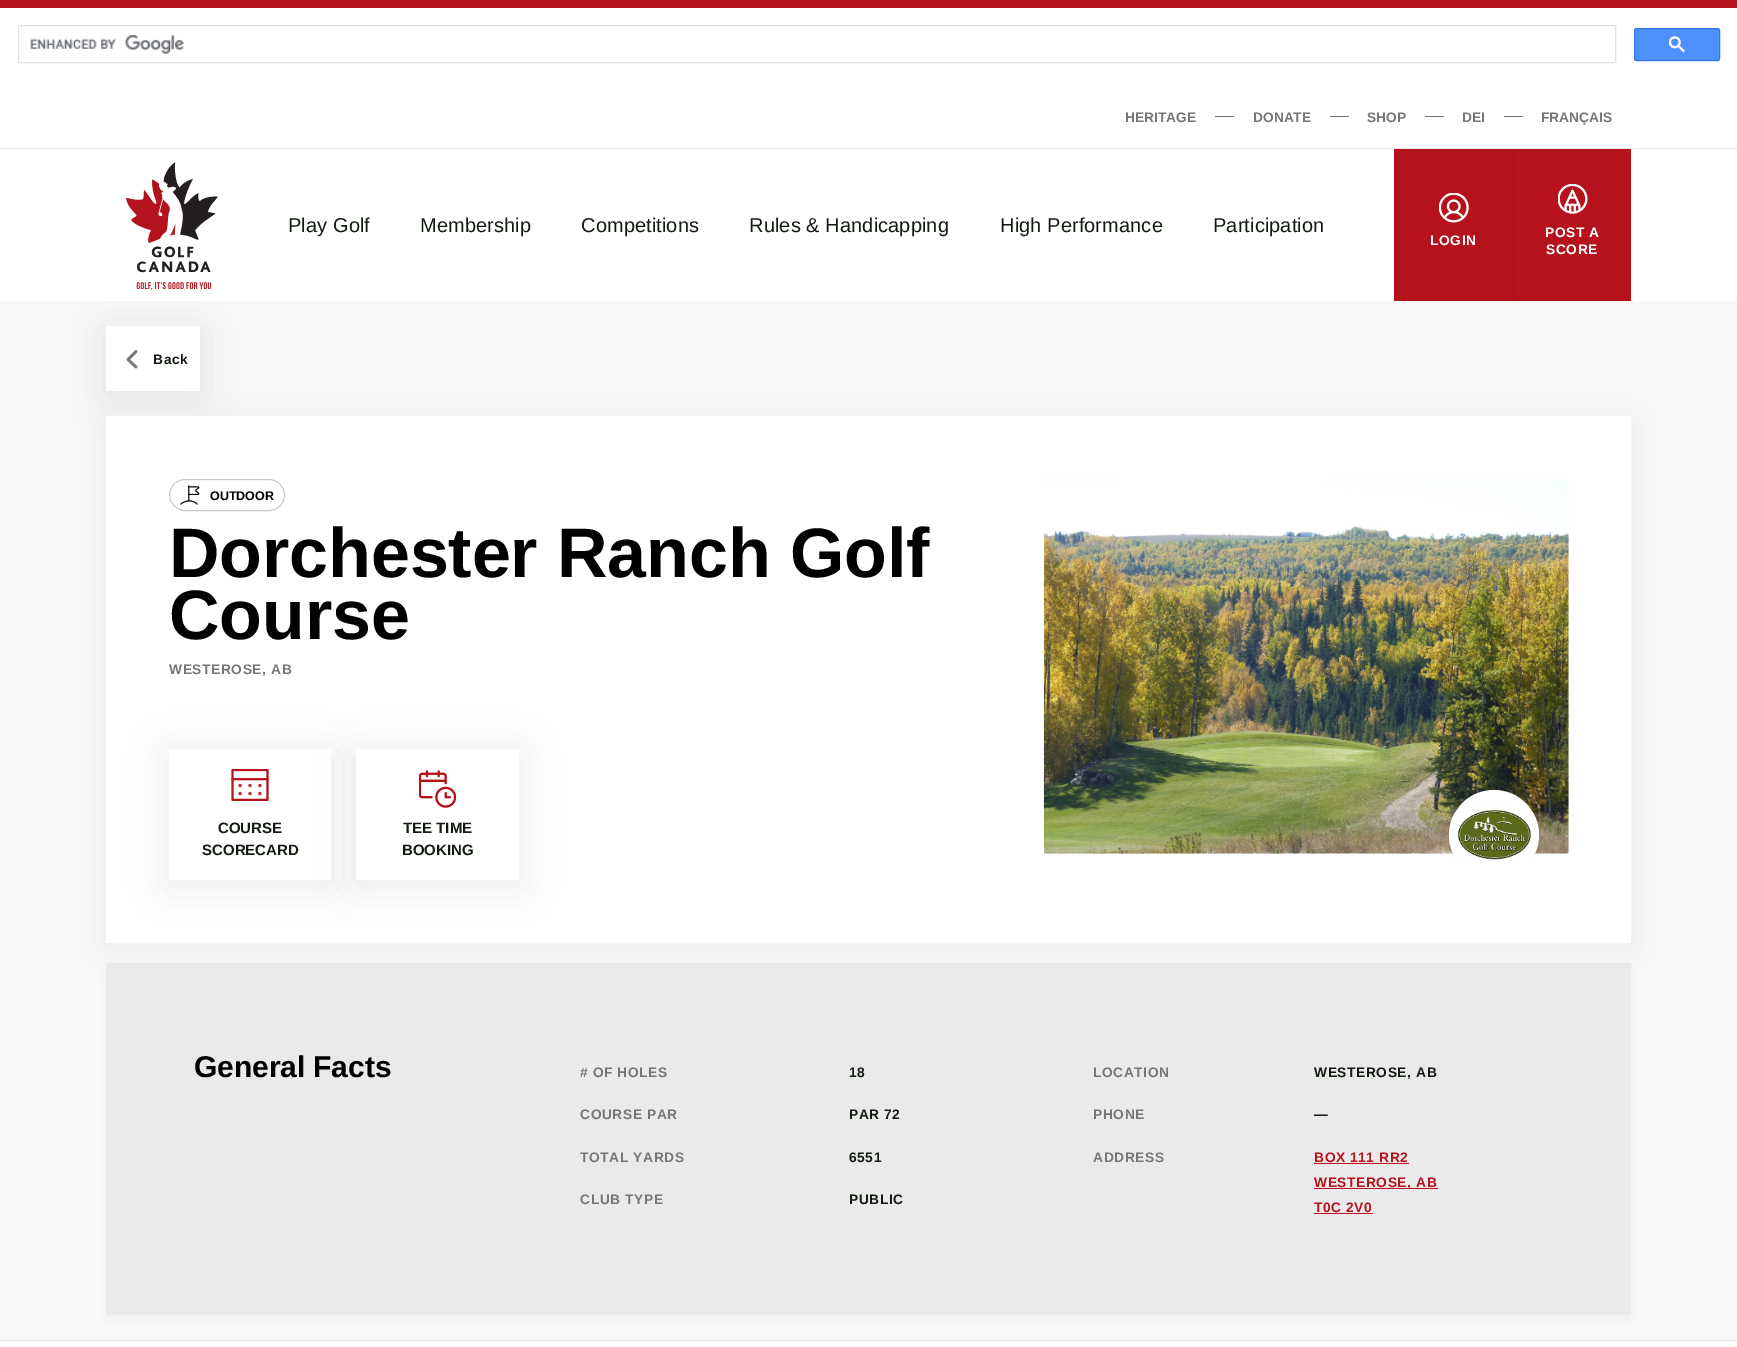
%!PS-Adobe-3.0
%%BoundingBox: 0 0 1737 1347
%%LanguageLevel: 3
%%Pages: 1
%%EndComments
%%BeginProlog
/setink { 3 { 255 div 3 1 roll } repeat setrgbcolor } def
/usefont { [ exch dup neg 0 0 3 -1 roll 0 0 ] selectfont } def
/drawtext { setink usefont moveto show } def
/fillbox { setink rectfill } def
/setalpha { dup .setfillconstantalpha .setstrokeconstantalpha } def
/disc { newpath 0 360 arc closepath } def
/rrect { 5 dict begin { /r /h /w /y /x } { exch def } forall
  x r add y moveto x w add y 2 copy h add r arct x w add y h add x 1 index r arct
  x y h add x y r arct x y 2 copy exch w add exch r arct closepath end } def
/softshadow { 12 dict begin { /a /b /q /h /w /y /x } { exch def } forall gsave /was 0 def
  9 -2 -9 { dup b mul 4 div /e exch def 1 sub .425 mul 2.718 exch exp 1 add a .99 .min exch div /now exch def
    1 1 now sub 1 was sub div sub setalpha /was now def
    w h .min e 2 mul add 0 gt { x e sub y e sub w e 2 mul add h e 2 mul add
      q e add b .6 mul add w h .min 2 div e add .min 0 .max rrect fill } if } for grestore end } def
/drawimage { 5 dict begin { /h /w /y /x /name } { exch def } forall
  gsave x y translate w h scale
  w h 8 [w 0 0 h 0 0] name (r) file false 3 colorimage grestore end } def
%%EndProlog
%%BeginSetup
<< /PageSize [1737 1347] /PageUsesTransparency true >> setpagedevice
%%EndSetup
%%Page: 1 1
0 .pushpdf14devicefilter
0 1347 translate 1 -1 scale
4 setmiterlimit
0 0 1737 1347 248 248 251 fillbox
90 90 90 setink
106 331 94 65 0 19 0.12 softshadow
0 8 1737 293 255 255 255 fillbox
0 0 1737 8 181 18 27 fillbox
223 225 229 setink
18.5 25.5 1597 37 rectstroke
(assets/img1.rgb) 30 35 154 19 drawimage
77 144 254 setink
1634.5 28.5 85 32 2 rrect gsave fill grestore
48 121 237 setink
stroke
(assets/img2.rgb) 1669 36 16 17 drawimage
0 148 1737 1 234 234 234 fillbox
(HERITAGE) 1125 122 /LiberationSans-Bold 13.75 118 118 118 drawtext
1215 116 19 1 118 118 118 fillbox
(DONATE) 1253 122 /LiberationSans-Bold 13.75 118 118 118 drawtext
1330 116 19 1 118 118 118 fillbox
(SHOP) 1367 122 /LiberationSans-Bold 13.75 118 118 118 drawtext
1425 116 19 1 118 118 118 fillbox
(DEI) 1462 122 /LiberationSans-Bold 13.75 118 118 118 drawtext
1504 116 19 1 118 118 118 fillbox
(FRANÇAIS) 1541 122 /LiberationSans-Bold 13.75 118 118 118 drawtext
(assets/img3.rgb) 126 162 92 128 drawimage
/LiberationSans-Regular 20 usefont
18 27 16 setink
288 232 moveto 0.1 0 (Play Golf) ashow
420 232 moveto 0.1 0 (Membership) ashow
581 232 moveto 0.1 0 (Competitions) ashow
749 232 moveto 0.1 0 (Rules & Handicapping) ashow
1000 232 moveto 0.1 0 (High Performance) ashow
1213 232 moveto 0.1 0 (Participation) ashow
1394 149 119 152 181 18 27 fillbox
(assets/img4.rgb) 1439 193 30 30 drawimage
/LiberationSans-Bold 13.75 usefont
255 255 255 setink
1430 245 moveto 0.6 0 (LOGIN) ashow
1514 149 117 152 181 18 27 fillbox
1513 149 1 152 163 16 24 fillbox
(assets/img5.rgb) 1558 184 30 30 drawimage
255 255 255 setink
1545 237 moveto 0.6 0 (POST A) ashow
1546 254 moveto 0.6 0 (SCORE) ashow
106 326 94 65 255 255 255 fillbox
118 118 118 setink
2.6 setlinewidth
1 setlinecap
1 setlinejoin
136 351.5 moveto 128 359.5 lineto 136 367 lineto stroke
18 27 16 setink
153 364 moveto 0.6 0 (Back) ashow
0 0 0 setink
106 421 1525 527 0 19 0.05 softshadow
106 416 1525 527 255 255 255 fillbox
204 204 204 setink
1 setlinewidth
0 setlinecap
0 setlinejoin
169.5 479.5 115 31 15.5 rrect stroke
(assets/img6.rgb) 180 485 20 20 drawimage
(OUTDOOR) 210 500 /LiberationSans-Bold 12.5 0 0 0 drawtext
/LiberationSans-Bold 70 usefont
169 577 moveto -0.1 0 (Dorchester Ranch Golf) ashow
169 639 moveto -0.1 0 (Course) ashow
/LiberationSans-Bold 13.75 usefont
118 118 118 setink
169 674 moveto 0.6 0 (WESTEROSE, AB) ashow
gsave
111 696 moveto 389 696 lineto 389 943 lineto 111 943 lineto closepath 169 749 moveto 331 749 lineto 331 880 lineto 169 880 lineto closepath eoclip newpath
90 90 90 setink
169 754 162 131 0 19 0.12 softshadow
grestore
(assets/img7.rgb) 231 769 38 32 drawimage
(COURSE) 218 833 /LiberationSans-Bold 15 18 27 16 drawtext
(SCORECARD) 202 855 /LiberationSans-Bold 15 18 27 16 drawtext
90 90 90 setink
356 754 163 131 0 19 0.12 softshadow
356 749 163 131 255 255 255 fillbox
(assets/img8.rgb) 419 770 37 38 drawimage
(TEE TIME) 403 833 /LiberationSans-Bold 15 18 27 16 drawtext
(BOOKING) 402 855 /LiberationSans-Bold 15 18 27 16 drawtext
(assets/img9.rgb) 1043 479 526 375 drawimage
255 255 255 setink
1494 835 45 disc fill
(assets/img10.rgb) 1455 807 77 54 drawimage
0 0 0 setink
106 966 1525 353 0 5.5 0.04 softshadow
106 963 1525 352 234 234 234 fillbox
/LiberationSans-Bold 30 usefont
0 0 0 setink
194 1077 moveto -0.1 0 (General Facts) ashow
/LiberationSans-Bold 13.75 usefont
118 118 118 setink
580 1077 moveto 0.6 0 (# OF HOLES) ashow
18 27 16 setink
849 1077 moveto 0.6 0 (18) ashow
118 118 118 setink
580 1119 moveto 0.6 0 (COURSE PAR) ashow
18 27 16 setink
849 1119 moveto 0.6 0 (PAR 72) ashow
118 118 118 setink
580 1162 moveto 0.6 0 (TOTAL YARDS) ashow
18 27 16 setink
849 1162 moveto 0.6 0 (6551) ashow
118 118 118 setink
580 1204 moveto 0.6 0 (CLUB TYPE) ashow
18 27 16 setink
849 1204 moveto 0.6 0 (PUBLIC) ashow
118 118 118 setink
1093 1077 moveto 0.6 0 (LOCATION) ashow
18 27 16 setink
1314 1077 moveto 0.6 0 (WESTEROSE, AB) ashow
118 118 118 setink
1093 1119 moveto 0.6 0 (PHONE) ashow
18 27 16 setink
1314 1119 moveto 0.6 0 (—) ashow
118 118 118 setink
1093 1162 moveto 0.6 0 (ADDRESS) ashow
181 18 27 setink
1314 1162 moveto 0.6 0 (BOX 111 RR2) ashow
1314 1163 95 1 181 18 27 fillbox
1314 1188 124 1 181 18 27 fillbox
1314 1187 moveto 0.6 0 (WESTEROSE, AB) ashow
1314 1212 moveto 0.6 0 (T0C 2V0) ashow
1314 1213 59 1 181 18 27 fillbox
0 1341 1737 6 255 255 255 fillbox
0 1340 1737 1 234 234 234 fillbox
.poppdf14devicefilter showpage
%%EOF
